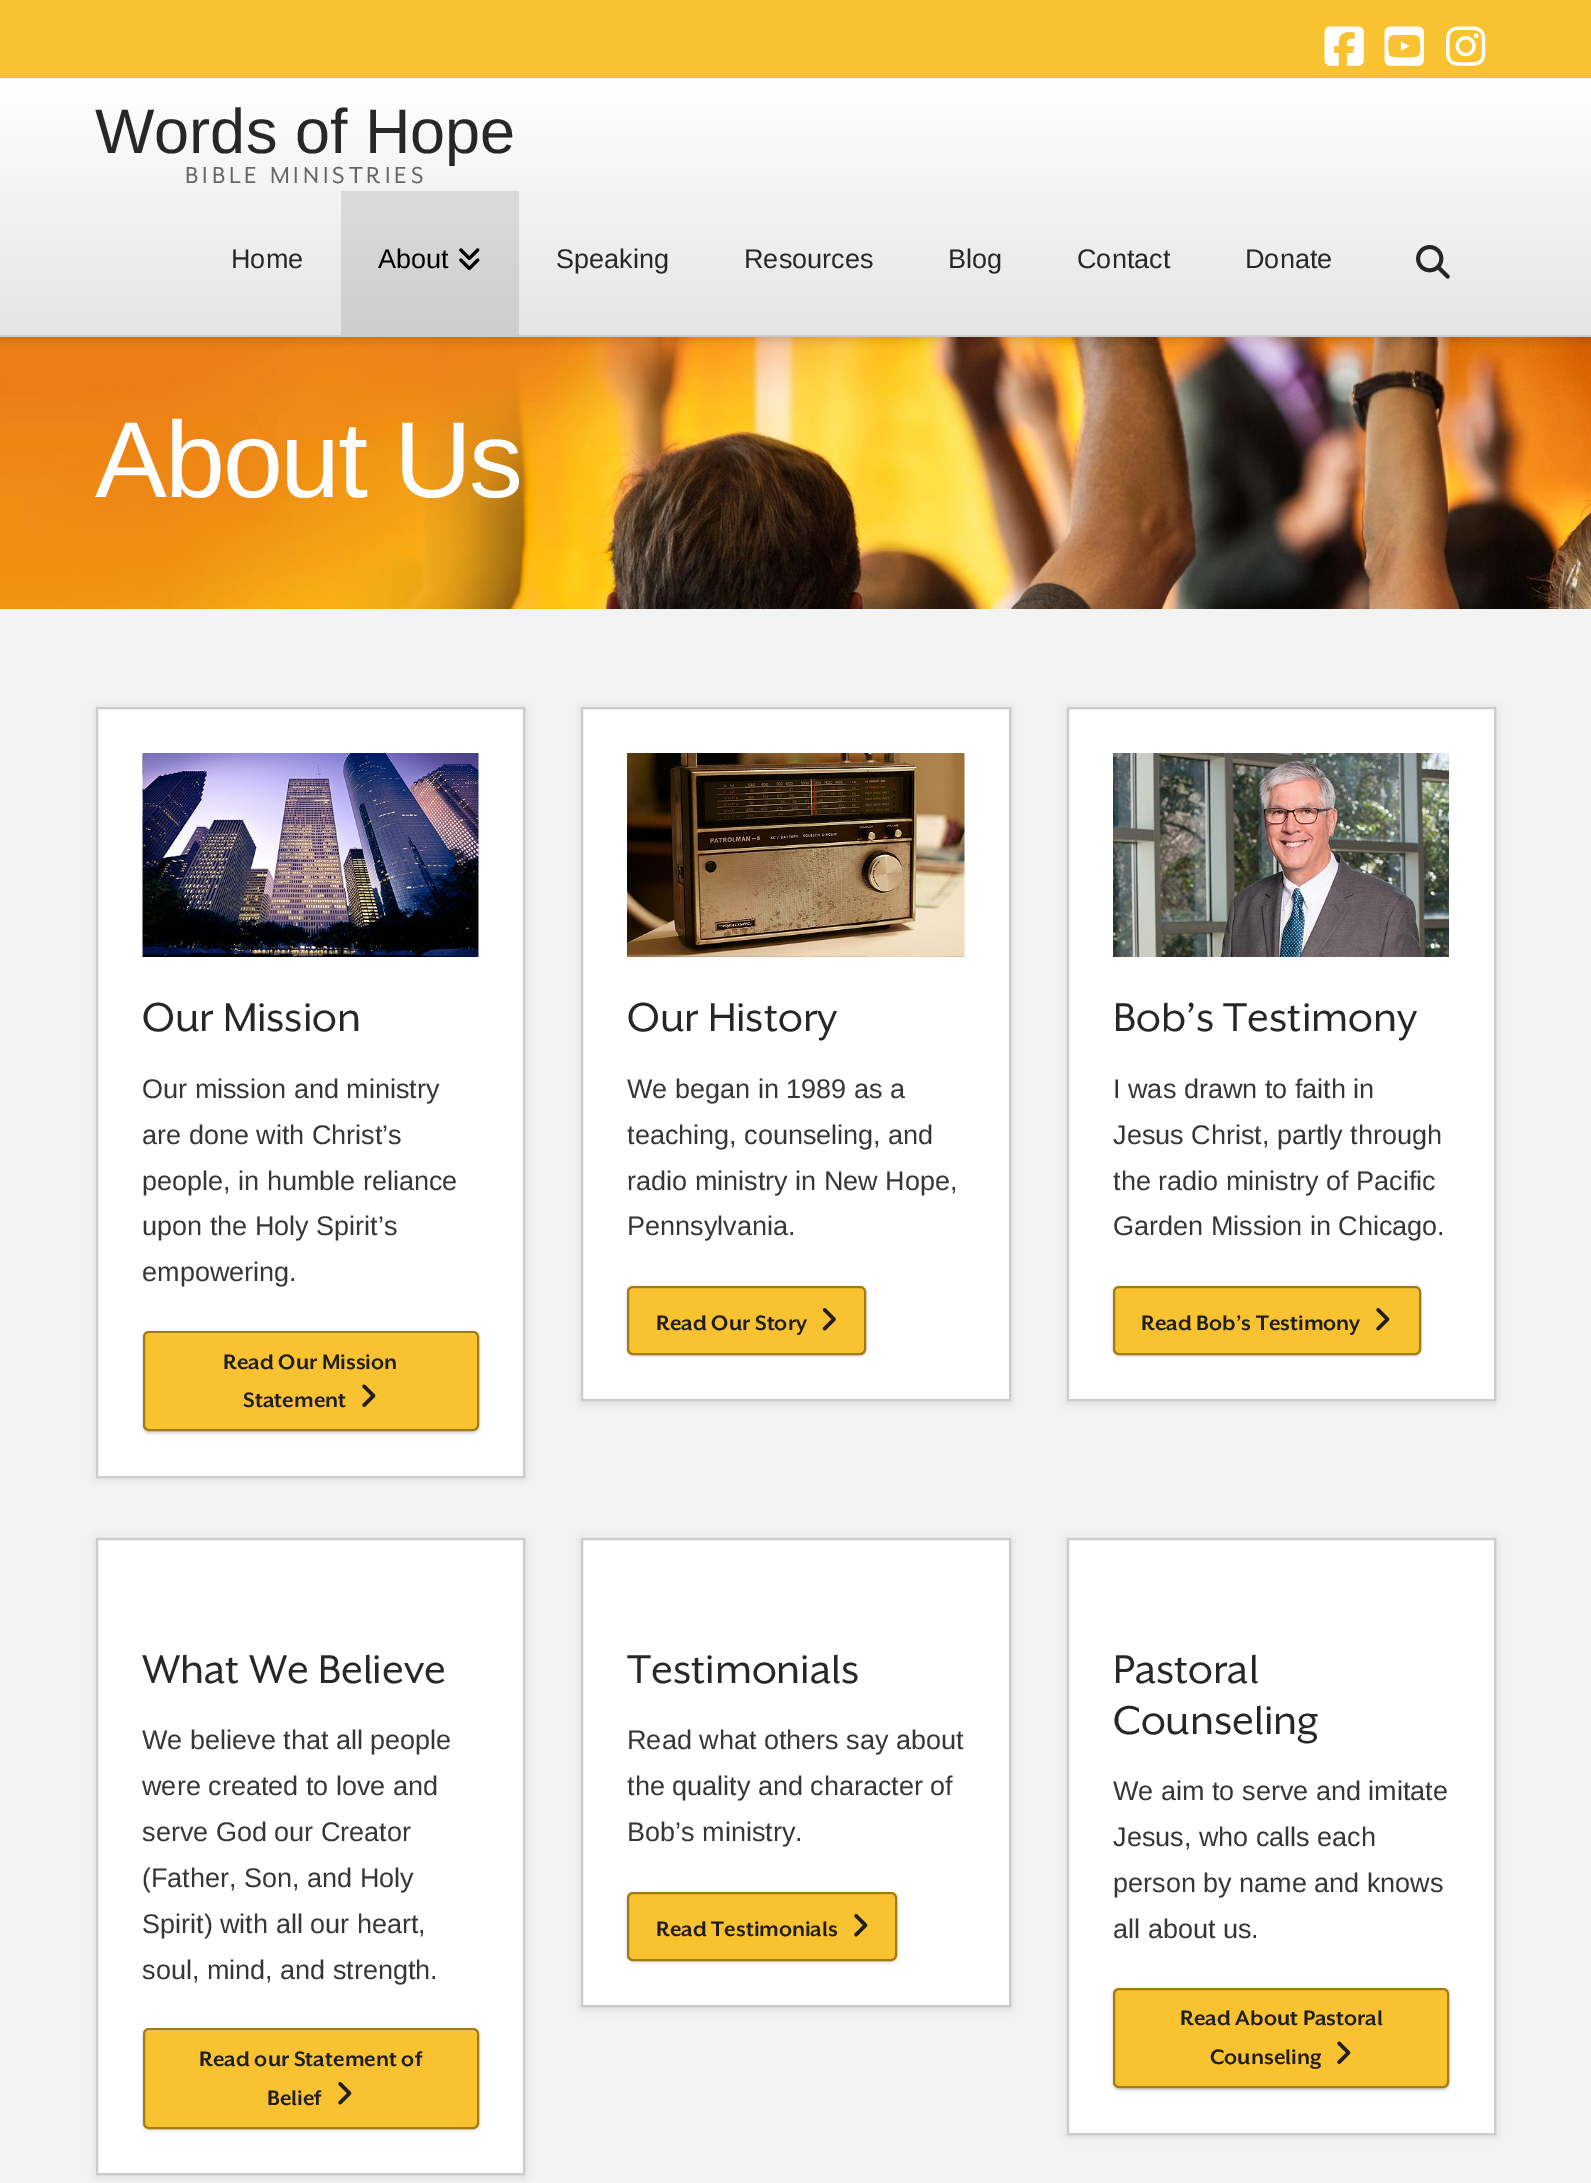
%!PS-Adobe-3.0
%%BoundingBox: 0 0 1591 2183
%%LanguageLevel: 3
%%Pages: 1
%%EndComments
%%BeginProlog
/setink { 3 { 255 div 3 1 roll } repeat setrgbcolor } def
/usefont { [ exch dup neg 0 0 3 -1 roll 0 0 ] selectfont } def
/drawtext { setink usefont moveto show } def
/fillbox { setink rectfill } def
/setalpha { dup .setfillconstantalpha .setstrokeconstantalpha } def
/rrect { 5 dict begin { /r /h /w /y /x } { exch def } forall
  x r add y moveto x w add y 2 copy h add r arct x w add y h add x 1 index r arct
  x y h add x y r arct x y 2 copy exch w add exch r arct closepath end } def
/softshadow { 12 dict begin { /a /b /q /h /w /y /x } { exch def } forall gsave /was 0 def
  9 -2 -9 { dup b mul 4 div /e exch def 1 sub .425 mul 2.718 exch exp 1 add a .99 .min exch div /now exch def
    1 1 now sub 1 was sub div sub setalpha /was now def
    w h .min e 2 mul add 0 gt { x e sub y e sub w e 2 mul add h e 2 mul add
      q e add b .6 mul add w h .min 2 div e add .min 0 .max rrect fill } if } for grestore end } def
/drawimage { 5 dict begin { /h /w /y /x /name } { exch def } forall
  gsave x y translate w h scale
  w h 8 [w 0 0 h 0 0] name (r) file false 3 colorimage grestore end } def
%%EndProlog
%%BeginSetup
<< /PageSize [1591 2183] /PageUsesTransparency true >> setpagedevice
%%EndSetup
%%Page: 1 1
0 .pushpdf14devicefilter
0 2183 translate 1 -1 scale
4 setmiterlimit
0 0 1591 2183 243 243 243 fillbox
0 0 1591 78 249 194 49 fillbox
(assets/img1.rgb) 1324 26 40 40 drawimage
(assets/img2.rgb) 1384 26 40 40 drawimage
(assets/img3.rgb) 1446 26 40 40 drawimage
(assets/img6.rgb) 0 337 1591 272 drawimage
0 0 0 setink
0 83 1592 258 0 4.5 0.13 softshadow
gsave 0 78 moveto 1591 78 lineto 1591 335 lineto 0 335 lineto closepath clip newpath
<< /ShadingType 2 /ColorSpace /DeviceRGB /Coords [796 78 796 335] /Extend [true true] /Function << /FunctionType 2 /Domain [0 1] /C0 [1 1 1] /C1 [0.898 0.898 0.898] /N 1 >> >> shfill grestore
0 335 1591 2 204 204 204 fillbox
(Words of Hope) 95 153 /LiberationSans-Regular 63 39 39 39 drawtext
/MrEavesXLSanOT-Regular 26.5 usefont
102 102 102 setink
185 183 moveto 4 0 (BIBLE MINISTRIES) ashow
(Home) 231 268 /LiberationSans-Regular 27 39 39 39 drawtext
0.1 setalpha
341 191 178 144 0 0 0 fillbox
1 setalpha
(About) 378 268 /LiberationSans-Regular 27 0 0 0 drawtext
(assets/img4.rgb) 459 248 21 23 drawimage
(Speaking) 556 268 /LiberationSans-Regular 27 39 39 39 drawtext
(Resources) 744 268 /LiberationSans-Regular 27 39 39 39 drawtext
(Blog) 948 268 /LiberationSans-Regular 27 39 39 39 drawtext
(Contact) 1077 268 /LiberationSans-Regular 27 39 39 39 drawtext
(Donate) 1245 268 /LiberationSans-Regular 27 39 39 39 drawtext
(assets/img5.rgb) 1416 245 34 34 drawimage
/LiberationSans-Regular 108 usefont
255 255 255 setink
95 497 moveto -2.25 0 (About Us) ashow
0 0 0 setink
96 708 429 771 0 4.5 0.1 softshadow
255 255 255 setink
97 708 moveto 524 708 lineto 524 1477 lineto 97 1477 lineto closepath gsave fill grestore
204 204 204 setink
2 setlinewidth
stroke
(assets/img7.rgb) 142 753 337 204 drawimage
(Our Mission) 142 1031 /MrEavesXLSanOT-Regular 46.25 39 39 39 drawtext
(Our mission and ministry) 142 1098 /LiberationSans-Regular 27 54 54 54 drawtext
(are done with Christ’s) 142 1144 /LiberationSans-Regular 27 54 54 54 drawtext
(people, in humble reliance) 142 1190 /LiberationSans-Regular 27 54 54 54 drawtext
(upon the Holy Spirit’s) 142 1235 /LiberationSans-Regular 27 54 54 54 drawtext
(empowering.) 142 1281 /LiberationSans-Regular 27 54 54 54 drawtext
0 0 0 setink
143 1332 336 101 6 1.5 0.2 softshadow
249 194 49 setink
143 1331 336 100 6 rrect fill
251 218 131 setink
148 1334 moveto 472 1334 lineto 475 1334 477 1336 477 1338 curveto 477 1335 475 1332 472 1332 curveto 149 1332 lineto 146 1332 144 1335 144 1338 curveto 144 1336 146 1334 148 1334 curveto closepath fill
162 123 18 setink
144 1332 334 98 5 rrect stroke
(Read Our Mission) 223 1369 /MrEavesXLSanOT-Bold 24 31 31 31 drawtext
(Statement) 243 1407 /MrEavesXLSanOT-Bold 24 31 31 31 drawtext
(assets/img8.rgb) 362 1384 14 23 drawimage
0 0 0 setink
581 708 430 695 0 4.5 0.1 softshadow
255 255 255 setink
582 708 moveto 1010 708 lineto 1010 1400 lineto 582 1400 lineto closepath gsave fill grestore
204 204 204 setink
stroke
(assets/img9.rgb) 627 753 338 204 drawimage
(Our History) 627 1031 /MrEavesXLSanOT-Regular 46.25 39 39 39 drawtext
(We began in 1989 as a) 627 1098 /LiberationSans-Regular 27 54 54 54 drawtext
(teaching, counseling, and) 627 1144 /LiberationSans-Regular 27 54 54 54 drawtext
(radio ministry in New Hope,) 627 1190 /LiberationSans-Regular 27 54 54 54 drawtext
(Pennsylvania.) 627 1235 /LiberationSans-Regular 27 54 54 54 drawtext
0 0 0 setink
627 1287 239 69 6 1.5 0.2 softshadow
249 194 49 setink
627 1286 239 69 6 rrect fill
251 218 131 setink
633 1288 moveto 860 1288 lineto 862 1288 864 1291 864 1293 curveto 864 1292 lineto 864 1289 862 1287 859 1287 curveto 634 1287 lineto 632 1287 630 1288 629 1290 curveto 630 1289 632 1288 633 1288 curveto closepath fill
162 123 18 setink
628 1287 237 67 5 rrect stroke
(Read Our Story) 656 1330 /MrEavesXLSanOT-Bold 24 31 31 31 drawtext
(assets/img10.rgb) 822 1308 14 23 drawimage
0 0 0 setink
1067 708 429 695 0 4.5 0.1 softshadow
255 255 255 setink
1068 708 moveto 1495 708 lineto 1495 1400 lineto 1068 1400 lineto closepath gsave fill grestore
204 204 204 setink
stroke
(assets/img11.rgb) 1113 753 336 204 drawimage
(Bob’s Testimony) 1113 1031 /MrEavesXLSanOT-Regular 46.25 39 39 39 drawtext
(I was drawn to faith in) 1113 1098 /LiberationSans-Regular 27 54 54 54 drawtext
(Jesus Christ, partly through) 1113 1144 /LiberationSans-Regular 27 54 54 54 drawtext
(the radio ministry of Pacific) 1113 1190 /LiberationSans-Regular 27 54 54 54 drawtext
(Garden Mission in Chicago.) 1113 1235 /LiberationSans-Regular 27 54 54 54 drawtext
0 0 0 setink
1113 1287 308 69 6 1.5 0.2 softshadow
249 194 49 setink
1113 1286 308 69 6 rrect fill
251 218 131 setink
1119 1288 moveto 1414 1288 lineto 1417 1288 1419 1291 1419 1293 curveto 1419 1290 1417 1287 1414 1287 curveto 1119 1287 lineto 1117 1287 1116 1289 1115 1290 curveto 1116 1289 1118 1288 1119 1288 curveto closepath fill
162 123 18 setink
1114 1287 306 67 5 rrect stroke
(Read Bob’s Testimony) 1141 1330 /MrEavesXLSanOT-Bold 24 31 31 31 drawtext
(assets/img12.rgb) 1376 1308 14 23 drawimage
0 0 0 setink
96 1539 429 638 0 4.5 0.1 softshadow
255 255 255 setink
97 1539 moveto 524 1539 lineto 524 2174 lineto 97 2174 lineto closepath gsave fill grestore
204 204 204 setink
stroke
(What We Believe) 142 1683 /MrEavesXLSanOT-Regular 46.25 39 39 39 drawtext
(We believe that all people) 142 1749 /LiberationSans-Regular 27 54 54 54 drawtext
(were created to love and) 142 1795 /LiberationSans-Regular 27 54 54 54 drawtext
(serve God our Creator) 142 1841 /LiberationSans-Regular 27 54 54 54 drawtext
(\(Father, Son, and Holy) 142 1887 /LiberationSans-Regular 27 54 54 54 drawtext
(Spirit\) with all our heart,) 142 1933 /LiberationSans-Regular 27 54 54 54 drawtext
(soul, mind, and strength.) 142 1979 /LiberationSans-Regular 27 54 54 54 drawtext
0 0 0 setink
143 2030 336 100 6 1.5 0.2 softshadow
249 194 49 setink
143 2028 336 101 6 rrect fill
251 218 131 setink
148 2031 moveto 472 2031 lineto 475 2031 477 2033 477 2036 curveto 477 2033 475 2030 472 2030 curveto 149 2030 lineto 146 2030 144 2033 144 2036 curveto 144 2033 146 2031 148 2031 curveto closepath fill
162 123 18 setink
144 2029 334 99 5 rrect stroke
(Read our Statement of) 199 2066 /MrEavesXLSanOT-Bold 24 31 31 31 drawtext
(Belief) 267 2105 /MrEavesXLSanOT-Bold 24 31 31 31 drawtext
(assets/img12.rgb) 338 2082 14 23 drawimage
0 0 0 setink
581 1539 430 470 0 4.5 0.1 softshadow
255 255 255 setink
582 1539 moveto 1010 1539 lineto 1010 2006 lineto 582 2006 lineto closepath gsave fill grestore
204 204 204 setink
stroke
(Testimonials) 627 1683 /MrEavesXLSanOT-Regular 46.25 39 39 39 drawtext
(Read what others say about) 627 1749 /LiberationSans-Regular 27 54 54 54 drawtext
(the quality and character of) 627 1795 /LiberationSans-Regular 27 54 54 54 drawtext
(Bob’s ministry.) 627 1841 /LiberationSans-Regular 27 54 54 54 drawtext
0 0 0 setink
627 1893 270 69 6 1.5 0.2 softshadow
249 194 49 setink
627 1892 270 69 6 rrect fill
251 218 131 setink
633 1894 moveto 891 1894 lineto 893 1894 896 1897 896 1899 curveto 896 1898 lineto 896 1895 894 1893 891 1893 curveto 634 1893 lineto 632 1893 630 1894 629 1896 curveto 630 1895 632 1894 633 1894 curveto closepath fill
162 123 18 setink
628 1893 268 67 5 rrect stroke
(Read Testimonials) 656 1936 /MrEavesXLSanOT-Bold 24 31 31 31 drawtext
(assets/img12.rgb) 854 1914 14 23 drawimage
0 0 0 setink
1067 1539 429 597 0 4.5 0.1 softshadow
255 255 255 setink
1068 1539 moveto 1495 1539 lineto 1495 2134 lineto 1068 2134 lineto closepath gsave fill grestore
204 204 204 setink
stroke
(Pastoral) 1113 1683 /MrEavesXLSanOT-Regular 46.25 39 39 39 drawtext
(Counseling) 1113 1734 /MrEavesXLSanOT-Regular 46.25 39 39 39 drawtext
(We aim to serve and imitate) 1113 1800 /LiberationSans-Regular 27 54 54 54 drawtext
(Jesus, who calls each) 1113 1846 /LiberationSans-Regular 27 54 54 54 drawtext
(person by name and knows) 1113 1892 /LiberationSans-Regular 27 54 54 54 drawtext
(all about us.) 1113 1938 /LiberationSans-Regular 27 54 54 54 drawtext
0 0 0 setink
1113 1989 336 101 6 1.5 0.2 softshadow
249 194 49 setink
1113 1988 336 100 6 rrect fill
251 218 131 setink
1119 1990 moveto 1443 1990 lineto 1445 1990 1448 1993 1448 1995 curveto 1448 1994 lineto 1448 1991 1446 1989 1443 1989 curveto 1120 1989 lineto 1118 1989 1116 1990 1115 1992 curveto 1116 1991 1118 1990 1119 1990 curveto closepath fill
162 123 18 setink
1114 1989 334 98 5 rrect stroke
(Read About Pastoral) 1180 2025 /MrEavesXLSanOT-Bold 24 31 31 31 drawtext
(Counseling) 1210 2064 /MrEavesXLSanOT-Bold 24 31 31 31 drawtext
(assets/img8.rgb) 1337 2041 14 23 drawimage
.poppdf14devicefilter showpage
%%EOF
